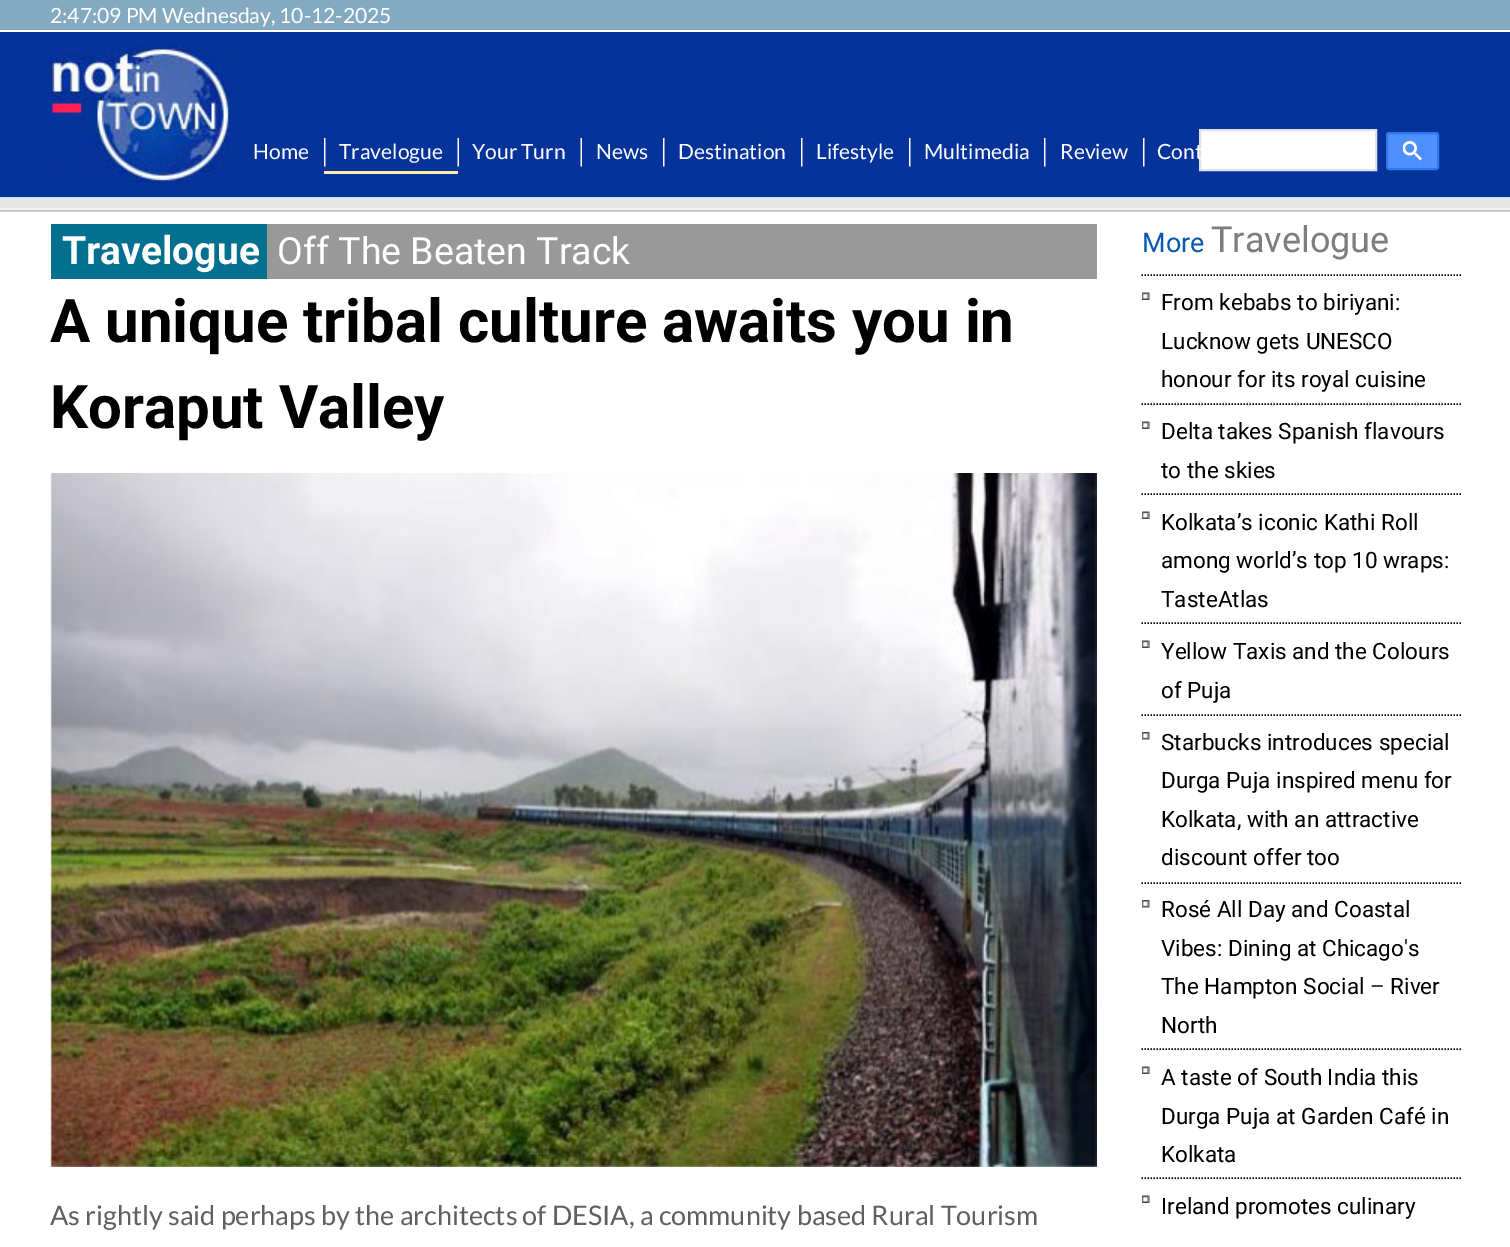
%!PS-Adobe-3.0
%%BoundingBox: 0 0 1510 1247
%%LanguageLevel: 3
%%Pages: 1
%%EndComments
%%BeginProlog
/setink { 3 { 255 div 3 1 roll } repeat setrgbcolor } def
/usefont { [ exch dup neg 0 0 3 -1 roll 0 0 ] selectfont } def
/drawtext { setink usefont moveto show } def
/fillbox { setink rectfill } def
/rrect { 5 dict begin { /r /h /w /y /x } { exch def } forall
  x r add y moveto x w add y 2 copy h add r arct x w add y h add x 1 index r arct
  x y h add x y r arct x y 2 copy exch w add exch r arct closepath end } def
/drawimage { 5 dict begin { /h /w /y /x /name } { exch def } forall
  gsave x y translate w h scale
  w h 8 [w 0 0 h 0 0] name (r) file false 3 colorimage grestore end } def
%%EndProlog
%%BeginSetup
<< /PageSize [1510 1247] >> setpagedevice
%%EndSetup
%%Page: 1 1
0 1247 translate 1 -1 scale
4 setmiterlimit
0 0 1510 1247 255 255 255 fillbox
0 0 1510 30 132 170 193 fillbox
(2:47:09 PM Wednesday, 10-12-2025) 50 23 /Lato-Regular 21 255 255 255 drawtext
0 32 1510 165 6 51 154 fillbox
(assets/img1.rgb) 51 46 179 136 drawimage
(Home) 253 159 /Lato-Regular 21 255 255 255 drawtext
(assets/img2.rgb) 324 138 2 29 drawimage
324 171 134 3 255 234 166 fillbox
(Travelogue) 339 159 /Lato-Regular 21 255 255 255 drawtext
(assets/img3.rgb) 457 138 2 29 drawimage
(Your Turn) 472 159 /Lato-Regular 21 255 255 255 drawtext
(assets/img3.rgb) 580 138 2 29 drawimage
(News) 596 159 /Lato-Regular 21 255 255 255 drawtext
(assets/img2.rgb) 663 138 2 29 drawimage
(Destination) 678 159 /Lato-Regular 21 255 255 255 drawtext
(assets/img2.rgb) 801 138 2 29 drawimage
(Lifestyle) 816 159 /Lato-Regular 21 255 255 255 drawtext
(assets/img2.rgb) 909 138 2 29 drawimage
(Multimedia) 924 159 /Lato-Regular 21 255 255 255 drawtext
(assets/img2.rgb) 1044 138 2 29 drawimage
(Review) 1060 159 /Lato-Regular 21 255 255 255 drawtext
(assets/img2.rgb) 1143 138 2 29 drawimage
1200 130 moveto 1376 130 lineto 1376 170 lineto 1200 170 lineto closepath gsave fill grestore
223 225 229 setink
2 setlinewidth
stroke
(Cont) 1157 159 /Lato-Regular 21 255 255 255 drawtext
77 144 254 setink
1387 133 51 36 2 rrect gsave fill grestore
48 121 237 setink
stroke
(assets/img4.rgb) 1403 141 19 20 drawimage
(assets/img5.rgb) 0 197 1510 15 drawimage
267 224 830 55 153 153 153 fillbox
51 224 216 55 4 112 143 fillbox
(Travelogue) 62 264 /Roboto-Bold 39 255 255 255 drawtext
(Off The Beaten Track) 277 264 /Roboto-Regular 37.5 255 255 255 drawtext
(A unique tribal culture awaits you in) 50 342 /Roboto-Bold 60 0 0 0 drawtext
(Koraput Valley) 50 428 /Roboto-Bold 60 0 0 0 drawtext
(assets/img6.rgb) 50 473 1047 694 drawimage
(As rightly said perhaps by the architects of DESIA, a community based Rural Tourism) 50 1225 /Lato-Regular 27 94 95 95 drawtext
0 0 0 setink
1.5 setlinewidth
[1.5 1.5] 0 setdash
1141.5 275 moveto 1461 275 lineto stroke
(More) 1142 252 /Roboto-Regular 27 6 89 174 drawtext
(Travelogue) 1211 252 /Roboto-Regular 36 124 126 126 drawtext
0 0 0 setink
1141.5 404 moveto 1461 404 lineto stroke
(assets/img7.rgb) 1142 292 8 8 drawimage
(From kebabs to biriyani:) 1161 310 /Roboto-Regular 22.5 0 0 0 drawtext
(Lucknow gets UNESCO) 1161 349 /Roboto-Regular 22.5 0 0 0 drawtext
(honour for its royal cuisine) 1161 387 /Roboto-Regular 22.5 0 0 0 drawtext
1141.5 494 moveto 1461 494 lineto stroke
(assets/img7.rgb) 1142 421 8 8 drawimage
(Delta takes Spanish flavours) 1161 439 /Roboto-Regular 22.5 0 0 0 drawtext
(to the skies) 1161 478 /Roboto-Regular 22.5 0 0 0 drawtext
1141.5 623 moveto 1461 623 lineto stroke
(assets/img7.rgb) 1142 511 8 8 drawimage
(Kolkata’s iconic Kathi Roll) 1161 530 /Roboto-Regular 22.5 0 0 0 drawtext
(among world’s top 10 wraps:) 1161 568 /Roboto-Regular 22.5 0 0 0 drawtext
(TasteAtlas) 1161 607 /Roboto-Regular 22.5 0 0 0 drawtext
1141.5 715 moveto 1461 715 lineto stroke
(assets/img7.rgb) 1142 640 8 8 drawimage
(Yellow Taxis and the Colours) 1161 659 /Roboto-Regular 22.5 0 0 0 drawtext
(of Puja) 1161 698 /Roboto-Regular 22.5 0 0 0 drawtext
1141.5 883 moveto 1461 883 lineto stroke
(assets/img8.rgb) 1142 732 8 8 drawimage
(Starbucks introduces special) 1161 750 /Roboto-Regular 22.5 0 0 0 drawtext
(Durga Puja inspired menu for) 1161 788 /Roboto-Regular 22.5 0 0 0 drawtext
(Kolkata, with an attractive) 1161 827 /Roboto-Regular 22.5 0 0 0 drawtext
(discount offer too) 1161 865 /Roboto-Regular 22.5 0 0 0 drawtext
1141.5 1049 moveto 1461 1049 lineto stroke
(assets/img8.rgb) 1142 900 8 8 drawimage
(Rosé All Day and Coastal) 1161 917 /Roboto-Regular 22.5 0 0 0 drawtext
(Vibes: Dining at Chicago's) 1161 956 /Roboto-Regular 22.5 0 0 0 drawtext
(The Hampton Social – River) 1161 994 /Roboto-Regular 22.5 0 0 0 drawtext
(North) 1161 1033 /Roboto-Regular 22.5 0 0 0 drawtext
1141.5 1178 moveto 1461 1178 lineto stroke
(assets/img7.rgb) 1142 1066 8 8 drawimage
(A taste of South India this) 1161 1085 /Roboto-Regular 22.5 0 0 0 drawtext
(Durga Puja at Garden Café in) 1161 1124 /Roboto-Regular 22.5 0 0 0 drawtext
(Kolkata) 1161 1162 /Roboto-Regular 22.5 0 0 0 drawtext
(assets/img7.rgb) 1142 1195 8 8 drawimage
(Ireland promotes culinary) 1161 1214 /Roboto-Regular 22.5 0 0 0 drawtext
showpage
%%EOF
